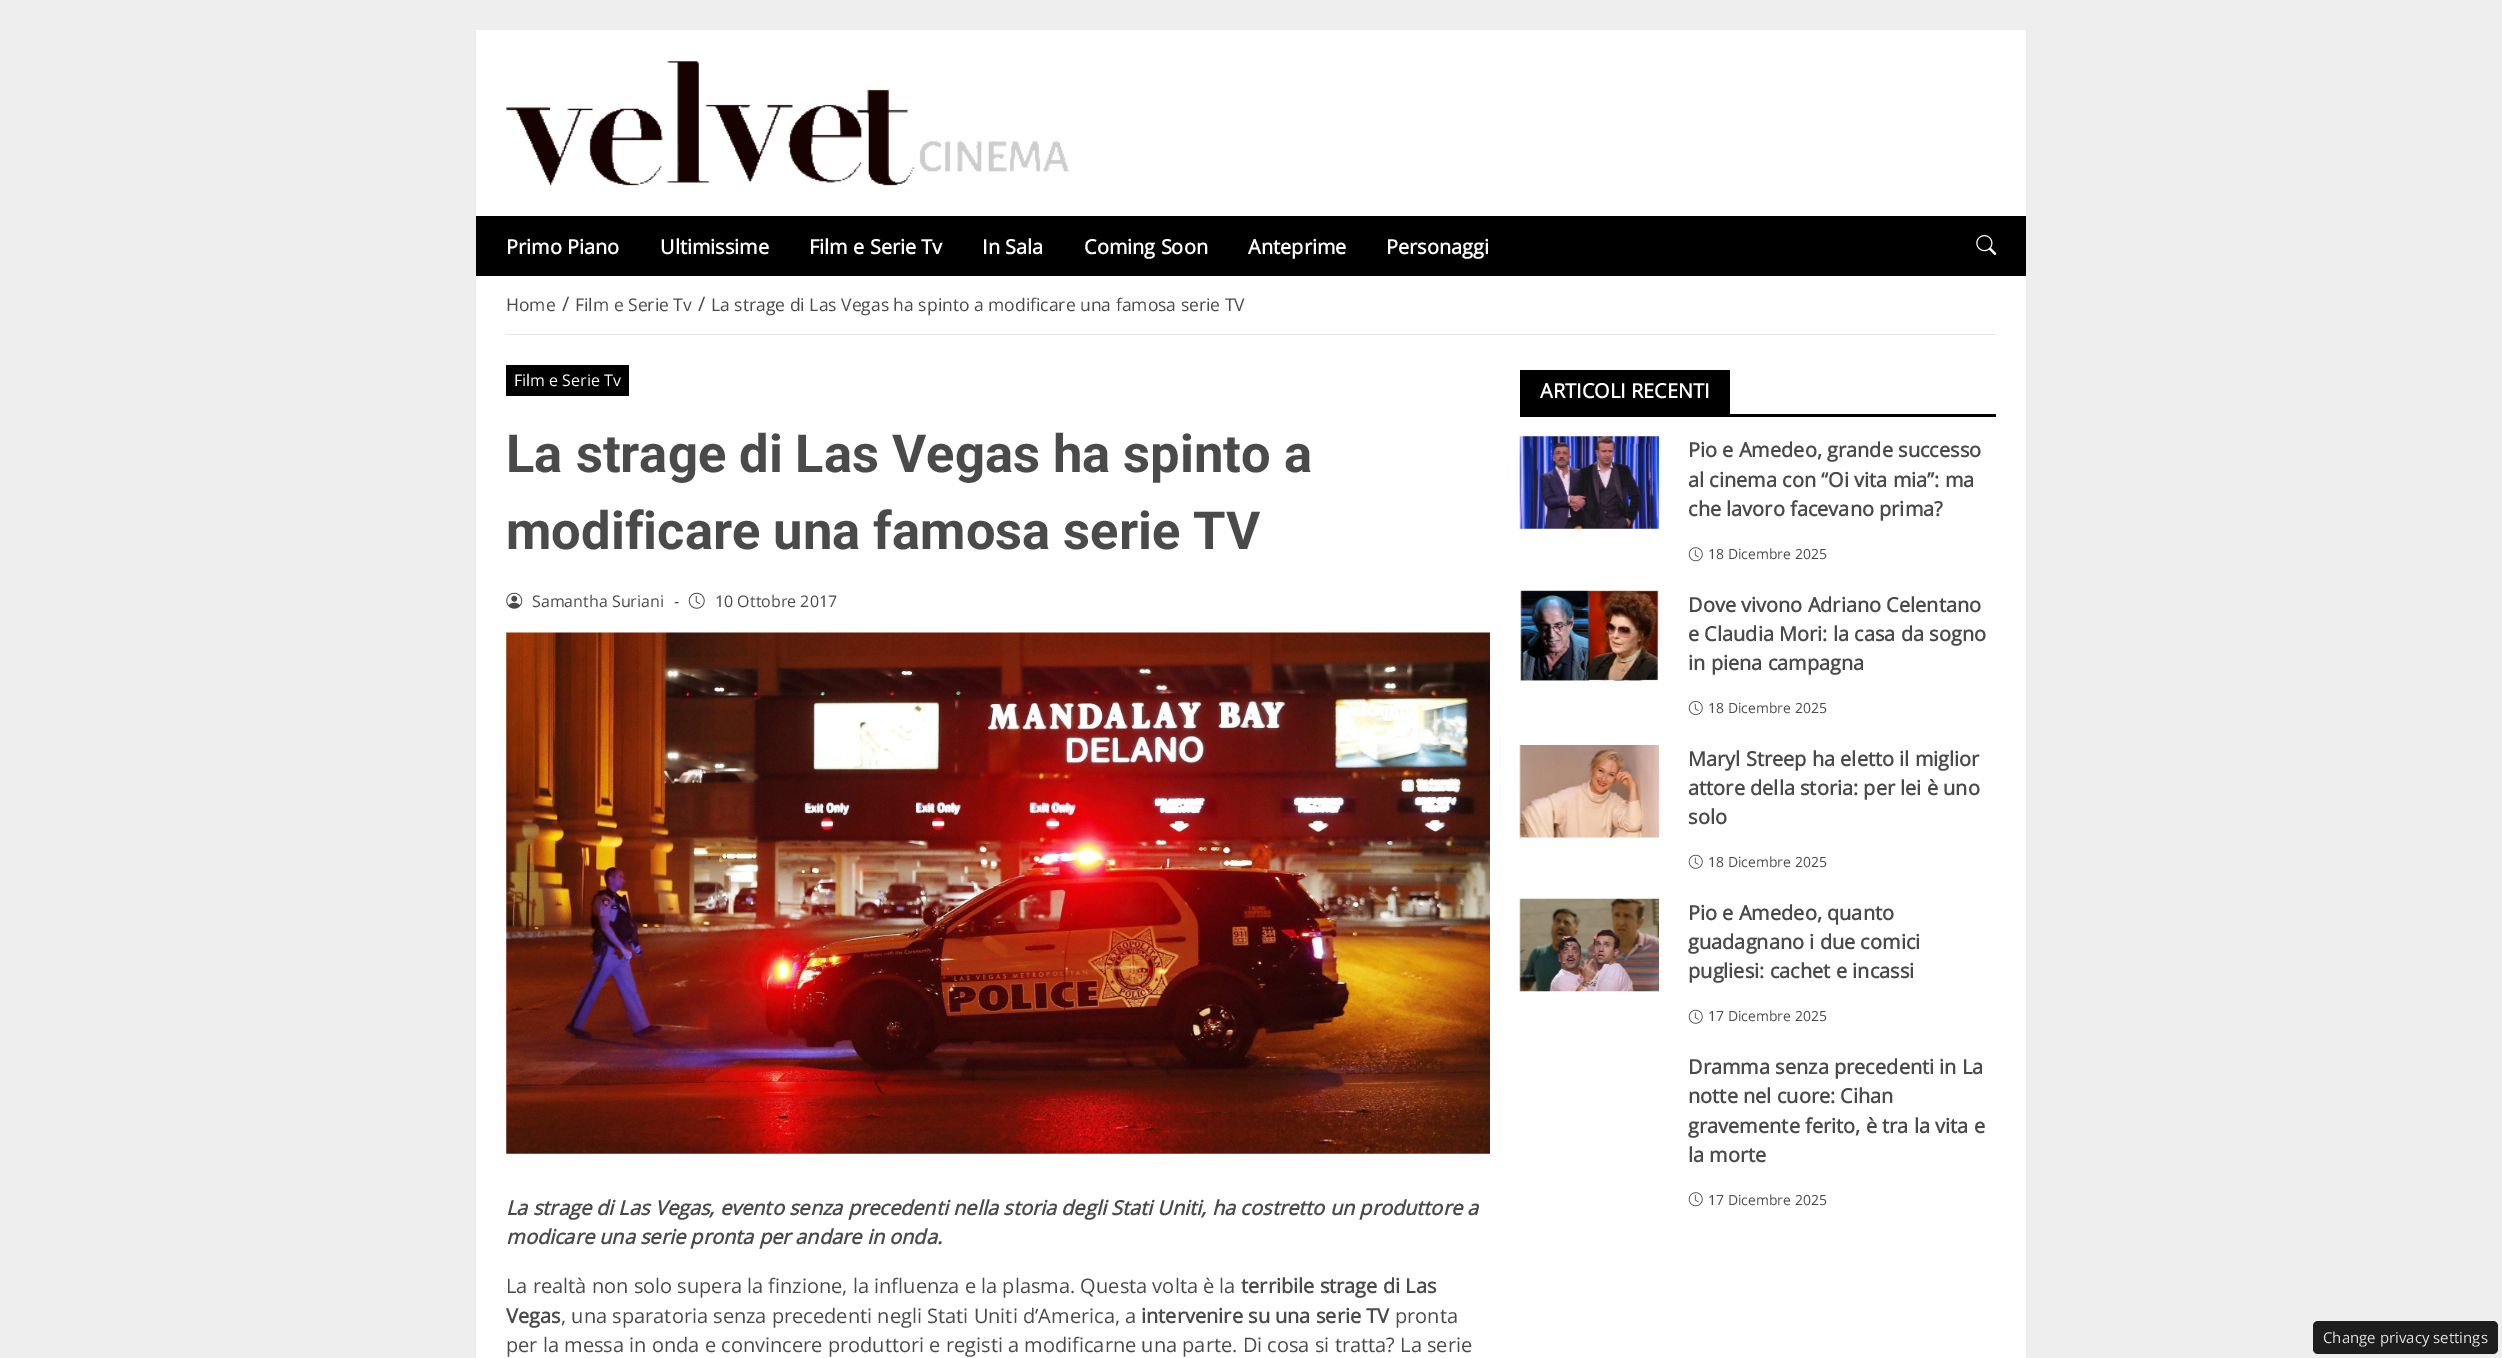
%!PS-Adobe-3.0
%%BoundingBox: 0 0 2502 1358
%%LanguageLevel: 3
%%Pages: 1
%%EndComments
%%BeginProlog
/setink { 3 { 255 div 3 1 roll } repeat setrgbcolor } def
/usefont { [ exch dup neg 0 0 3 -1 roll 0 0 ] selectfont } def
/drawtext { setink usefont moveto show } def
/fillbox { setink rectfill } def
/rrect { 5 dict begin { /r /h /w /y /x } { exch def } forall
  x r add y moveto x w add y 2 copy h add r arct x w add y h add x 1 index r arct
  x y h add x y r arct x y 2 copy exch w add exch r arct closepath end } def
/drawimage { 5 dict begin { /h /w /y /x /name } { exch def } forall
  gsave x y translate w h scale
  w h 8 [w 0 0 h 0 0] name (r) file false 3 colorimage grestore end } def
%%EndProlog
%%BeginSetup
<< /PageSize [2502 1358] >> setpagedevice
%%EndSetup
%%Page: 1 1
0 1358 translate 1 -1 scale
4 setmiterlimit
0 0 2502 1358 238 238 238 fillbox
476 30 1550 186 255 255 255 fillbox
(assets/img1.rgb) 506 61 563 125 drawimage
476 216 1550 60 0 0 0 fillbox
(Primo Piano) 506 254 /OpenSans-Bold 20 255 255 255 drawtext
(Ultimissime) 660 254 /OpenSans-Bold 20 255 255 255 drawtext
(Film e Serie Tv) 809 254 /OpenSans-Bold 20 255 255 255 drawtext
(In Sala) 982 254 /OpenSans-Bold 20 255 255 255 drawtext
(Coming Soon) 1084 254 /OpenSans-Bold 20 255 255 255 drawtext
(Anteprime) 1248 254 /OpenSans-Bold 20 255 255 255 drawtext
(Personaggi) 1386 254 /OpenSans-Bold 20 255 255 255 drawtext
(assets/img2.rgb) 1976 235 21 20 drawimage
476 276 1550 1082 255 255 255 fillbox
506 334 1490 1 230 230 230 fillbox
(Home) 506 311 /OpenSans-Regular 17.5 74 74 74 drawtext
(/) 562 311 /OpenSans-Regular 20 74 74 74 drawtext
(Film e Serie Tv) 575 311 /OpenSans-Regular 17.5 74 74 74 drawtext
(/) 698 311 /OpenSans-Regular 20 74 74 74 drawtext
(La strage di Las Vegas ha spinto a modificare una famosa serie TV) 711 311 /OpenSans-Regular 17.5 74 74 74 drawtext
506 365 123 31 0 0 0 fillbox
(Film e Serie Tv) 514 386 /OpenSans-Regular 16 255 255 255 drawtext
(La strage di Las Vegas ha spinto a) 506 472 /Roboto-Bold 52.5 74 74 74 drawtext
(modificare una famosa serie TV) 506 549 /Roboto-Bold 52.5 74 74 74 drawtext
(assets/img3.rgb) 506 592 17 17 drawimage
(Samantha Suriani) 532 607 /OpenSans-Regular 16 74 74 74 drawtext
(-) 674 607 /OpenSans-Regular 16 74 74 74 drawtext
(assets/img4.rgb) 688 592 17 17 drawimage
(10 Ottobre 2017) 715 607 /OpenSans-Regular 16 74 74 74 drawtext
(assets/img5.rgb) 506 632 984 522 drawimage
(La strage di Las Vegas, evento senza precedenti nella storia degli Stati Uniti, ha costretto un produttore a) 506 1215 /OpenSans-BoldItalic 20 74 74 74 drawtext
(modicare una serie pronta per andare in onda.) 506 1244 /OpenSans-BoldItalic 20 74 74 74 drawtext
(La realtà non solo supera la finzione, la influenza e la plasma. Questa volta è la) 506 1293 /OpenSans-Regular 20 74 74 74 drawtext
(terribile strage di Las) 1241 1293 /OpenSans-Bold 20 74 74 74 drawtext
(Vegas) 506 1323 /OpenSans-Bold 20 74 74 74 drawtext
(, una sparatoria senza precedenti negli Stati Uniti d’America, a) 561 1323 /OpenSans-Regular 20 74 74 74 drawtext
(intervenire su una serie TV) 1141 1323 /OpenSans-Bold 20 74 74 74 drawtext
(pronta) 1395 1323 /OpenSans-Regular 20 74 74 74 drawtext
(per la messa in onda e convincere produttori e registi a modificarne una parte. Di cosa si tratta? La serie) 506 1352 /OpenSans-Regular 20 74 74 74 drawtext
1520 414 476 3 0 0 0 fillbox
1520 370 210 44 0 0 0 fillbox
(ARTICOLI RECENTI) 1540 398 /OpenSans-Bold 20 255 255 255 drawtext
(assets/img6.rgb) 1519 436 140 93 drawimage
(Pio e Amedeo, grande successo) 1688 457 /OpenSans-Bold 20 74 74 74 drawtext
(al cinema con “Oi vita mia”: ma) 1688 487 /OpenSans-Bold 20 74 74 74 drawtext
(che lavoro facevano prima?) 1688 516 /OpenSans-Bold 20 74 74 74 drawtext
(assets/img7.rgb) 1688 547 15 15 drawimage
(18 Dicembre 2025) 1708 559 /OpenSans-Regular 14 74 74 74 drawtext
(assets/img8.rgb) 1520 590 139 91 drawimage
(Dove vivono Adriano Celentano) 1688 612 /OpenSans-Bold 20 74 74 74 drawtext
(e Claudia Mori: la casa da sogno) 1688 641 /OpenSans-Bold 20 74 74 74 drawtext
(in piena campagna) 1688 670 /OpenSans-Bold 20 74 74 74 drawtext
(assets/img9.rgb) 1688 701 15 14 drawimage
(18 Dicembre 2025) 1708 713 /OpenSans-Regular 14 74 74 74 drawtext
(assets/img10.rgb) 1519 745 140 93 drawimage
(Maryl Streep ha eletto il miglior) 1688 766 /OpenSans-Bold 20 74 74 74 drawtext
(attore della storia: per lei è uno) 1688 795 /OpenSans-Bold 20 74 74 74 drawtext
(solo) 1688 824 /OpenSans-Bold 20 74 74 74 drawtext
(assets/img11.rgb) 1688 854 15 15 drawimage
(18 Dicembre 2025) 1708 867 /OpenSans-Regular 14 74 74 74 drawtext
(assets/img12.rgb) 1519 898 140 94 drawimage
(Pio e Amedeo, quanto) 1688 920 /OpenSans-Bold 20 74 74 74 drawtext
(guadagnano i due comici) 1688 949 /OpenSans-Bold 20 74 74 74 drawtext
(pugliesi: cachet e incassi) 1688 978 /OpenSans-Bold 20 74 74 74 drawtext
(assets/img11.rgb) 1688 1009 15 15 drawimage
(17 Dicembre 2025) 1708 1021 /OpenSans-Regular 14 74 74 74 drawtext
(Dramma senza precedenti in La) 1688 1074 /OpenSans-Bold 20 74 74 74 drawtext
(notte nel cuore: Cihan) 1688 1103 /OpenSans-Bold 20 74 74 74 drawtext
(gravemente ferito, è tra la vita e) 1688 1133 /OpenSans-Bold 20 74 74 74 drawtext
(la morte) 1688 1162 /OpenSans-Bold 20 74 74 74 drawtext
(assets/img7.rgb) 1688 1192 15 15 drawimage
(17 Dicembre 2025) 1708 1205 /OpenSans-Regular 14 74 74 74 drawtext
30 30 30 setink
2313 1321 185 33 5 rrect fill
(Change privacy settings) 2323 1343 /OpenSans-Regular 15 227 225 225 drawtext
showpage
%%EOF
